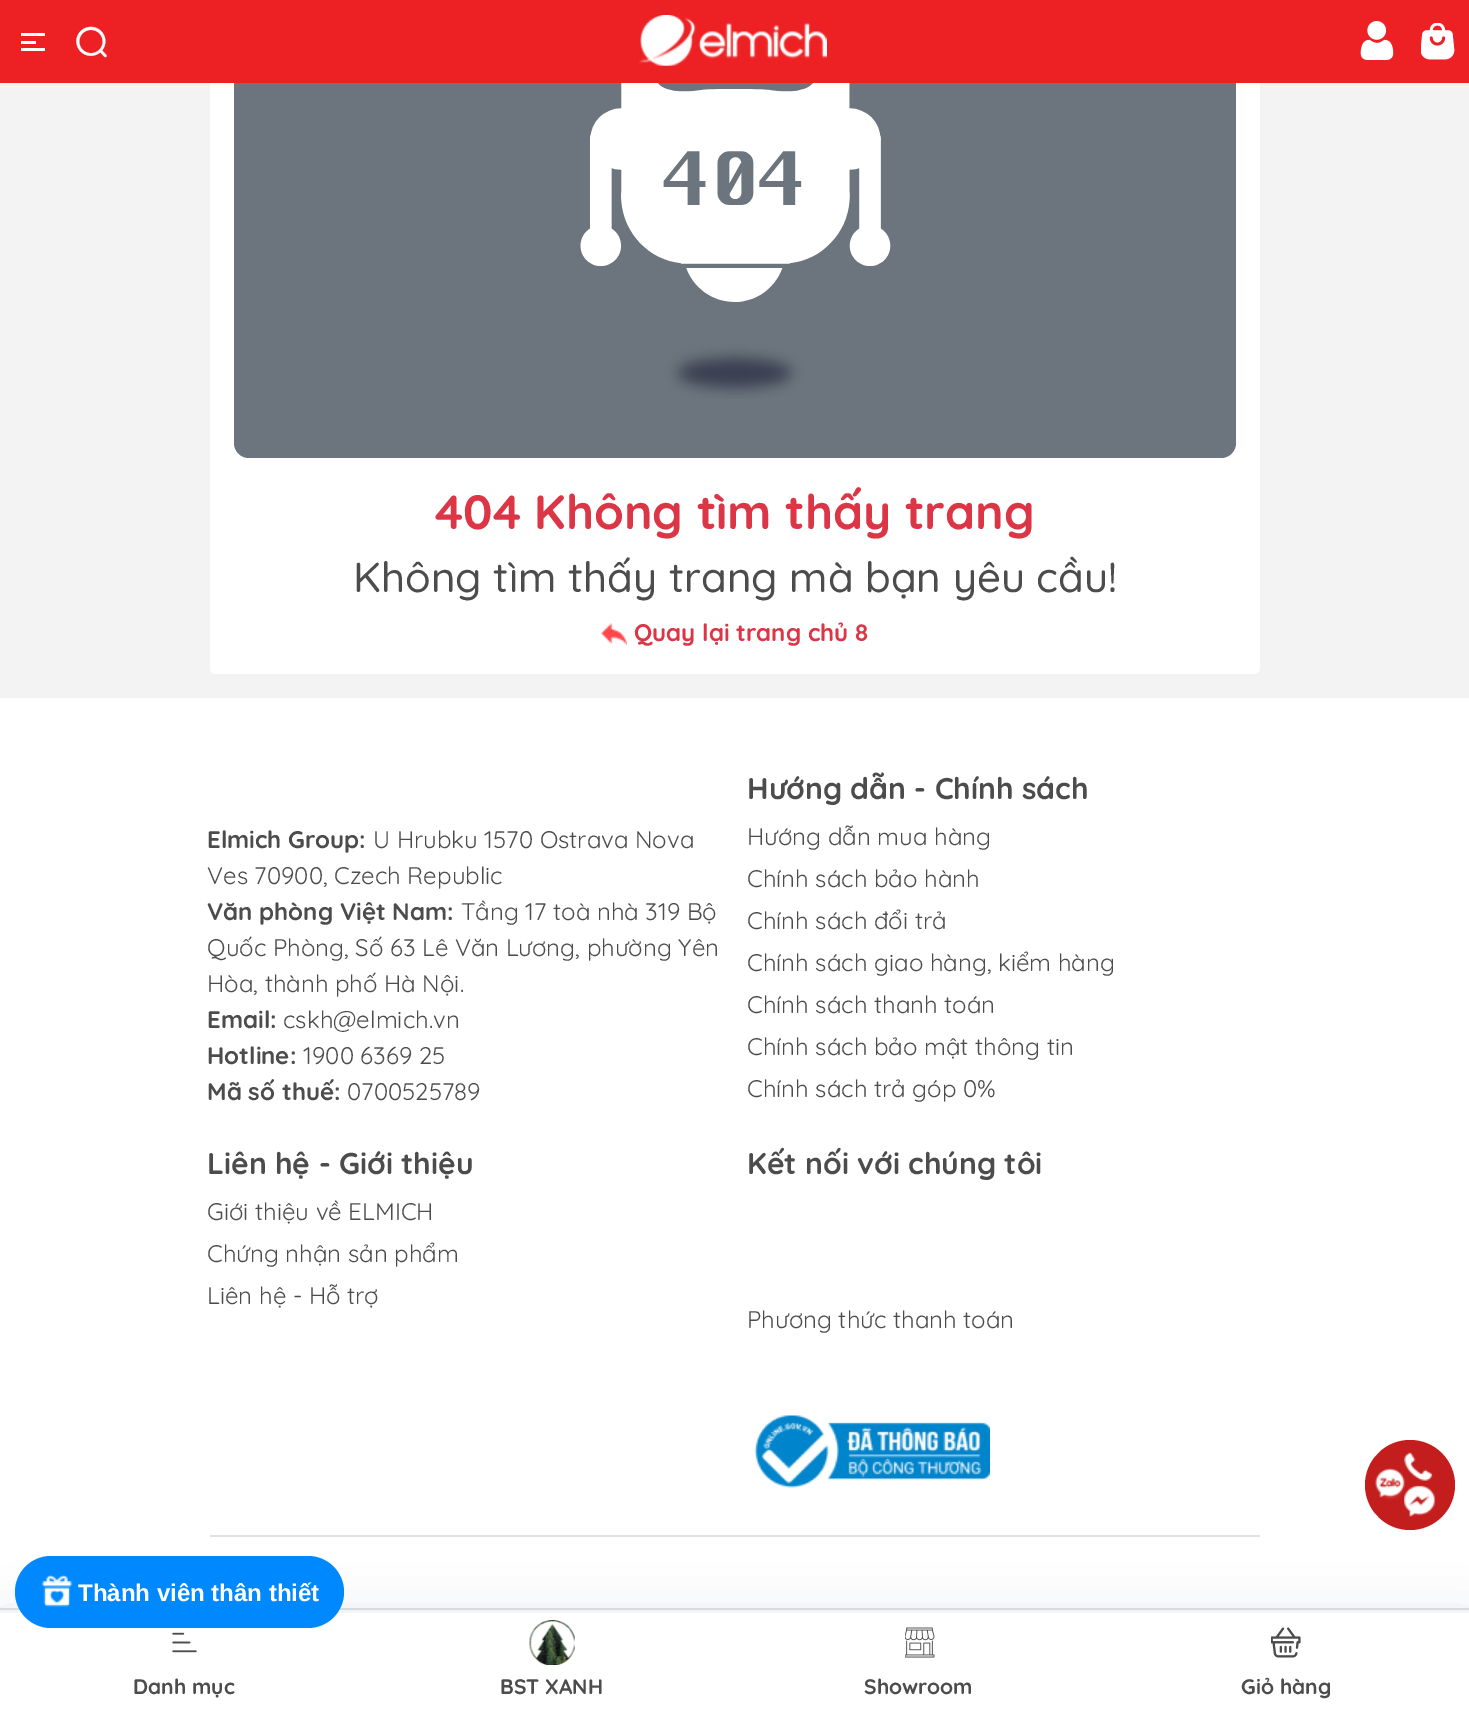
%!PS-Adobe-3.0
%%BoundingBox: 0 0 1469 1709
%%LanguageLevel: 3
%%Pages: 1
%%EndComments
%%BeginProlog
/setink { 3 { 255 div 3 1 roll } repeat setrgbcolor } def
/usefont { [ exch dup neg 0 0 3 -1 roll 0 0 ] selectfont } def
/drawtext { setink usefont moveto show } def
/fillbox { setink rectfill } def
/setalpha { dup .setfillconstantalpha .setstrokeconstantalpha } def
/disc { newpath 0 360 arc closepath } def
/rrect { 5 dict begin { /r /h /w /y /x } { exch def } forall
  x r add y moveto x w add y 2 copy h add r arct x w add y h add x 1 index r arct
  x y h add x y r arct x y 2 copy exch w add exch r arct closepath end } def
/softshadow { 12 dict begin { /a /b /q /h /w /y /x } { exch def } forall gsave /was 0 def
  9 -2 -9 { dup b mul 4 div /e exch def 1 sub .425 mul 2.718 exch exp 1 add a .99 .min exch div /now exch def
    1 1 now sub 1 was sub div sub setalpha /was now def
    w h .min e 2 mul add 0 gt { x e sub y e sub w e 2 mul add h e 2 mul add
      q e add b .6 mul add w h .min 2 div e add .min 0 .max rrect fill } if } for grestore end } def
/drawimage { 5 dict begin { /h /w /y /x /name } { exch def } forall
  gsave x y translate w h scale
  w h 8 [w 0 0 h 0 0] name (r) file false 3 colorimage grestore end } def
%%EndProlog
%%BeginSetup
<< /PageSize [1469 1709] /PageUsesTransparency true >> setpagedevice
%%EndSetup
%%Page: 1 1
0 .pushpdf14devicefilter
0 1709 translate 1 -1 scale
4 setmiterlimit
0 0 1469 1709 243 243 243 fillbox
255 255 255 setink
210 -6 1050 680 6 rrect fill
108 117 125 setink
234 -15 1002 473 15 rrect fill
0 0 1469 83 237 33 36 fillbox
21 33 24 3 255 255 255 fillbox
21 41 15 3 255 255 255 fillbox
21 48 24 3 255 255 255 fillbox
(assets/img1.rgb) 76 26 31 32 drawimage
(assets/img2.rgb) 639 15 188 51 drawimage
(assets/img3.rgb) 1360 21 34 39 drawimage
(assets/img4.rgb) 1421 23 34 37 drawimage
(assets/img5.rgb) 580 83 311 316 drawimage
(404 Không tìm thấy trang) 435 529 /Quicksand-Bold 48 220 53 69 drawtext
(Không tìm thấy trang mà bạn yêu cầu!) 353 592 /Quicksand-Medium 42 76 76 76 drawtext
(assets/img6.rgb) 601 623 26 23 drawimage
(Quay lại trang chủ 8) 634 641 /Quicksand-Bold 24 220 53 69 drawtext
0 698 1469 915 255 255 255 fillbox
(Elmich Group:) 207 848 /Quicksand-Bold 24 76 76 76 drawtext
(U Hrubku 1570 Ostrava Nova) 373 848 /Quicksand-Regular 24 76 76 76 drawtext
(Ves 70900, Czech Republic) 207 884 /Quicksand-Regular 24 76 76 76 drawtext
(Văn phòng Việt Nam:) 207 920 /Quicksand-Bold 24 76 76 76 drawtext
(Tầng 17 toà nhà 319 Bộ) 461 920 /Quicksand-Regular 24 76 76 76 drawtext
(Quốc Phòng, Số 63 Lê Văn Lương, phường Yên) 207 956 /Quicksand-Regular 24 76 76 76 drawtext
(Hòa, thành phố Hà Nội.) 207 992 /Quicksand-Regular 24 76 76 76 drawtext
(Email:) 207 1028 /Quicksand-Bold 24 76 76 76 drawtext
(cskh@elmich.vn) 283 1028 /Quicksand-Regular 24 76 76 76 drawtext
(Hotline:) 207 1064 /Quicksand-Bold 24 76 76 76 drawtext
(1900 6369 25) 303 1064 /Quicksand-Regular 24 76 76 76 drawtext
(Mã số thuế:) 207 1100 /Quicksand-Bold 24 76 76 76 drawtext
(0700525789) 347 1100 /Quicksand-Regular 24 76 76 76 drawtext
(Hướng dẫn - Chính sách) 747 799 /Quicksand-Bold 30 76 76 76 drawtext
(Hướng dẫn mua hàng) 747 845 /Quicksand-Regular 24 76 76 76 drawtext
(Chính sách bảo hành) 747 887 /Quicksand-Regular 24 76 76 76 drawtext
(Chính sách đổi trả) 747 929 /Quicksand-Regular 24 76 76 76 drawtext
(Chính sách giao hàng, kiểm hàng) 747 971 /Quicksand-Regular 24 76 76 76 drawtext
(Chính sách thanh toán) 747 1013 /Quicksand-Regular 24 76 76 76 drawtext
(Chính sách bảo mật thông tin) 747 1055 /Quicksand-Regular 24 76 76 76 drawtext
(Chính sách trả góp 0%) 747 1097 /Quicksand-Regular 24 76 76 76 drawtext
(Liên hệ - Giới thiệu) 207 1174 /Quicksand-Bold 30 76 76 76 drawtext
(Giới thiệu về ELMICH) 207 1220 /Quicksand-Regular 24 76 76 76 drawtext
(Chứng nhận sản phẩm) 207 1262 /Quicksand-Regular 24 76 76 76 drawtext
(Liên hệ - Hỗ trợ) 207 1304 /Quicksand-Regular 24 76 76 76 drawtext
(Kết nối với chúng tôi) 747 1174 /Quicksand-Bold 30 76 76 76 drawtext
(Phương thức thanh toán) 747 1328 /Quicksand-Regular 24 76 76 76 drawtext
(assets/img7.rgb) 754 1415 236 73 drawimage
195 29 29 setink
1410 1485 45 disc fill
(assets/img8.rgb) 1375 1452 61 65 drawimage
210 1535 1050 2 222 226 230 fillbox
0 1608 1469 2 222 226 230 fillbox
16 42 67 setink
0 1623 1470 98 0 27 0.15 softshadow
0 1613 1469 96 255 255 255 fillbox
(assets/img9.rgb) 172 1632 25 21 drawimage
(Danh mục) 133 1694 /Quicksand-Bold 21 76 76 76 drawtext
(assets/img10.rgb) 529 1620 46 45 drawimage
(BST XANH) 500 1694 /Quicksand-Bold 21 76 76 76 drawtext
(assets/img11.rgb) 905 1627 30 31 drawimage
(Showroom) 864 1694 /Quicksand-Bold 21 76 76 76 drawtext
(assets/img12.rgb) 1271 1627 30 31 drawimage
(Giỏ hàng) 1241 1694 /Quicksand-Bold 21 76 76 76 drawtext
0 136 255 setink
15 1556 329 72 36 rrect fill
(assets/img13.rgb) 41 1574 32 33 drawimage
(Thành viên thân thiết) 78 1601 /LiberationSans-Bold 24 255 255 255 drawtext
.poppdf14devicefilter showpage
%%EOF
